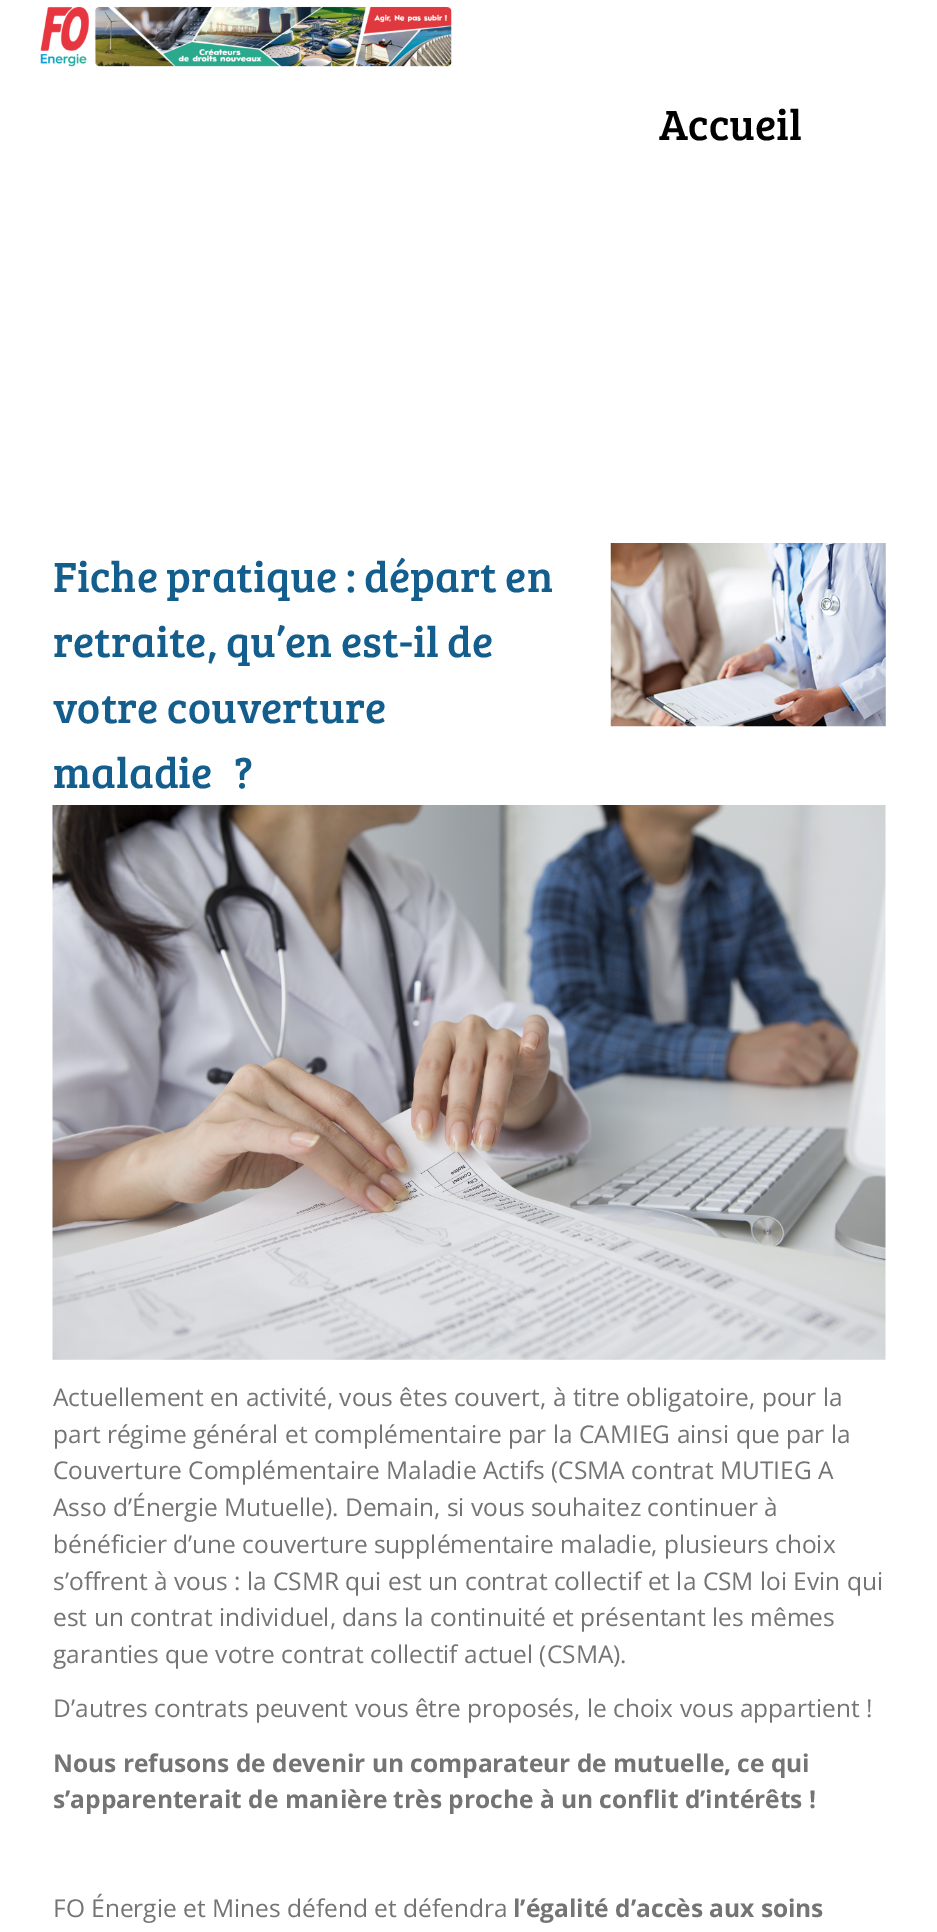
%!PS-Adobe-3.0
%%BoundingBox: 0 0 937 1932
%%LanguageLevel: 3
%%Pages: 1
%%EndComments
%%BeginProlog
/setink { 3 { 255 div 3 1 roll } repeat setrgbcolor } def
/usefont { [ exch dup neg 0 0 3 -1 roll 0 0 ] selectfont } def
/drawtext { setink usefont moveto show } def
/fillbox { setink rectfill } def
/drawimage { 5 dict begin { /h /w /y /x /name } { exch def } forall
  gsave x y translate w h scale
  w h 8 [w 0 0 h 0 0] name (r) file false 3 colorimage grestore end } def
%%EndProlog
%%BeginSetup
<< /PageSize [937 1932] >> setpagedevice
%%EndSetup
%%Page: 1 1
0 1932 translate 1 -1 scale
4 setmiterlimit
0 0 937 1932 255 255 255 fillbox
(assets/img1.rgb) 40 6 412 61 drawimage
(Accueil) 659 140 /BreeSerif-Regular 43.75 0 0 0 drawtext
(Fiche pratique : départ en) 53 592 /BreeSerif-Regular 43.75 19 94 141 drawtext
(retraite, qu’en est-il de) 53 657 /BreeSerif-Regular 43.75 19 94 141 drawtext
(votre couverture) 53 723 /BreeSerif-Regular 43.75 19 94 141 drawtext
(maladie ?) 53 788 /BreeSerif-Regular 43.75 19 94 141 drawtext
(assets/img2.rgb) 610 543 276 184 drawimage
(assets/img3.rgb) 52 805 834 555 drawimage
(Actuellement en activité, vous êtes couvert, à titre obligatoire, pour la) 53 1406 /OpenSans-Regular 24.5 116 116 116 drawtext
(part régime général et complémentaire par la CAMIEG ainsi que par la) 53 1443 /OpenSans-Regular 24.5 116 116 116 drawtext
(Couverture Complémentaire Maladie Actifs \(CSMA contrat MUTIEG A) 53 1479 /OpenSans-Regular 24.5 116 116 116 drawtext
(Asso d’Énergie Mutuelle\). Demain, si vous souhaitez continuer à) 53 1516 /OpenSans-Regular 24.5 116 116 116 drawtext
(bénéficier d’une couverture supplémentaire maladie, plusieurs choix) 53 1553 /OpenSans-Regular 24.5 116 116 116 drawtext
(s’offrent à vous : la CSMR qui est un contrat collectif et la CSM loi Evin qui) 53 1590 /OpenSans-Regular 24.5 116 116 116 drawtext
(est un contrat individuel, dans la continuité et présentant les mêmes) 53 1626 /OpenSans-Regular 24.5 116 116 116 drawtext
(garanties que votre contrat collectif actuel \(CSMA\).) 53 1663 /OpenSans-Regular 24.5 116 116 116 drawtext
(D’autres contrats peuvent vous être proposés, le choix vous appartient !) 53 1717 /OpenSans-Regular 24.5 116 116 116 drawtext
(Nous refusons de devenir un comparateur de mutuelle, ce qui) 53 1772 /OpenSans-Bold 24.5 116 116 116 drawtext
(s’apparenterait de manière très proche à un conflit d’intérêts !) 53 1808 /OpenSans-Bold 24.5 116 116 116 drawtext
(FO Énergie et Mines défend et défendra) 53 1917 /OpenSans-Regular 24.5 116 116 116 drawtext
(l’égalité d’accès aux soins) 513 1917 /OpenSans-Bold 24.5 116 116 116 drawtext
showpage
%%EOF
